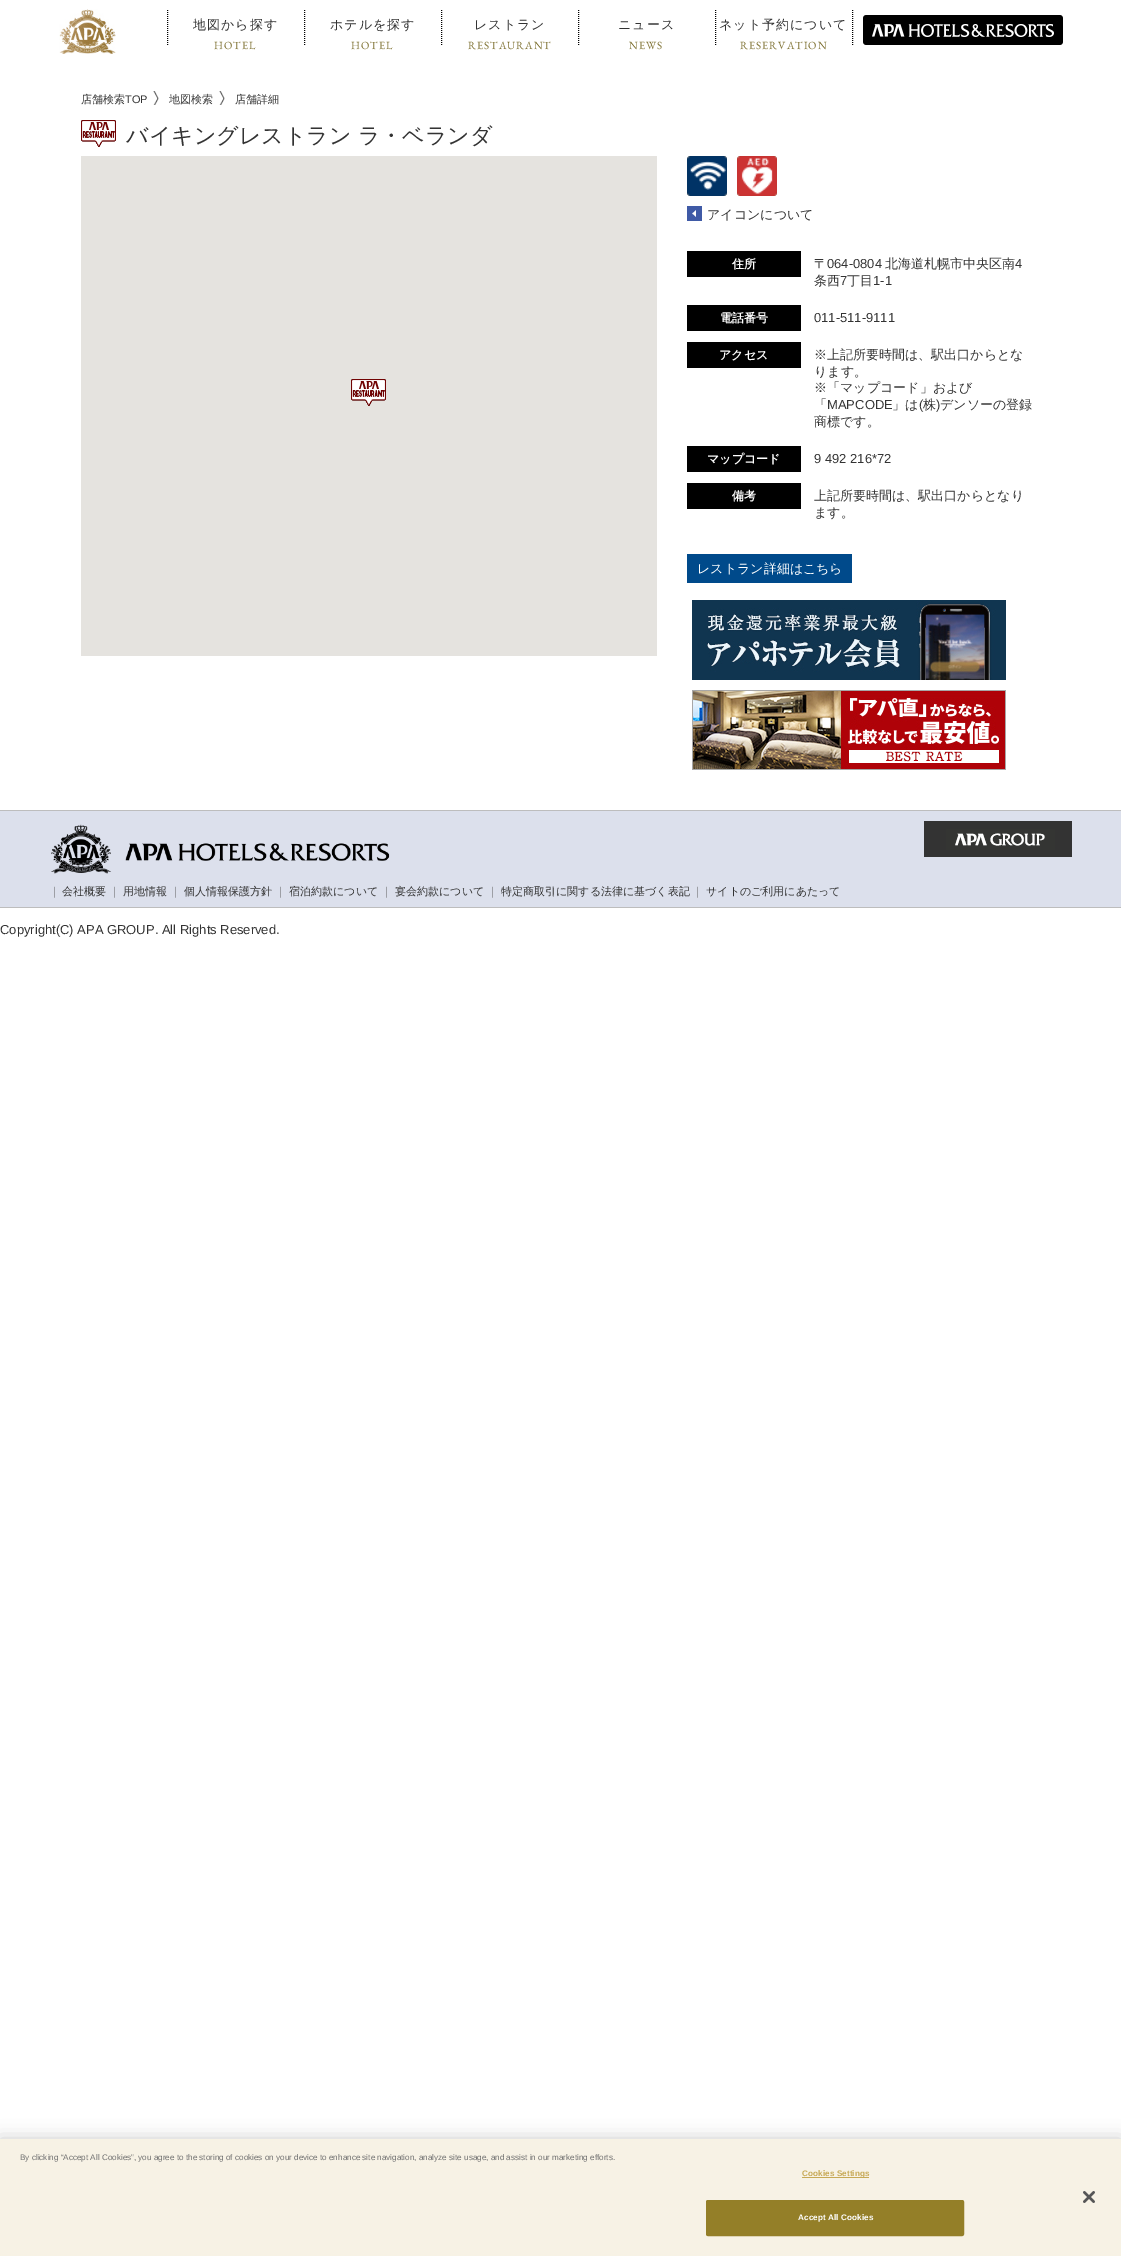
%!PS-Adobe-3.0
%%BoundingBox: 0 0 1121 2256
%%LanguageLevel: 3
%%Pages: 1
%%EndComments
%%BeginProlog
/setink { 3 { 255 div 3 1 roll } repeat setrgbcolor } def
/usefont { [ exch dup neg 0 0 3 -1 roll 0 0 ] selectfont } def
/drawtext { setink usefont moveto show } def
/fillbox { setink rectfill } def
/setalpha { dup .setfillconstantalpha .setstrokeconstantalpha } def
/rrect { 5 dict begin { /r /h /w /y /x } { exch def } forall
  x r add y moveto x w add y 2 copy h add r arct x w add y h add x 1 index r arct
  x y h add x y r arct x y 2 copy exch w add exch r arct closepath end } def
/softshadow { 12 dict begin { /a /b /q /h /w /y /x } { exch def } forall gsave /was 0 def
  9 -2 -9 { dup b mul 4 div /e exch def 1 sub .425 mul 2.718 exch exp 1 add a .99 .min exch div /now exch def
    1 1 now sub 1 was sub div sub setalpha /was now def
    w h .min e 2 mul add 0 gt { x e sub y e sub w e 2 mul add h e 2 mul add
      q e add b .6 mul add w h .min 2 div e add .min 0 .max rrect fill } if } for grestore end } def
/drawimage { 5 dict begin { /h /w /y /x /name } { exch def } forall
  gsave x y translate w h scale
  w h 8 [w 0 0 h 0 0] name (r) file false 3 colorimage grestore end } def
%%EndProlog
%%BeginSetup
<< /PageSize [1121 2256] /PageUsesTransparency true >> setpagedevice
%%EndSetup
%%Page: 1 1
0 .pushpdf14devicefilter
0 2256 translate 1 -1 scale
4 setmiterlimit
0 0 1121 2256 255 255 255 fillbox
(assets/img1.rgb) 59 9 57 45 drawimage
0 0 0 setink
[1 1] 0 setdash
304.5 10 moveto 304.5 45 lineto stroke
167.5 10 moveto 167.5 45 lineto stroke
/WenQuanYiZenHei-Medium 13 usefont
51 51 51 setink
193 29 moveto 1 0 (地図から探す) ashow
/EBGaramond-Regular 11 usefont
128 115 52 setink
214 49 moveto 1 0 (HOTEL) ashow
0 0 0 setink
441.5 10 moveto 441.5 45 lineto stroke
/WenQuanYiZenHei-Medium 13 usefont
51 51 51 setink
330 29 moveto 1 0 (ホテルを探す) ashow
/EBGaramond-Regular 11 usefont
128 115 52 setink
351 49 moveto 1 0 (HOTEL) ashow
0 0 0 setink
578.5 10 moveto 578.5 45 lineto stroke
/WenQuanYiZenHei-Medium 13 usefont
51 51 51 setink
474 29 moveto 1 0 (レストラン) ashow
/EBGaramond-Regular 11 usefont
128 115 52 setink
468 49 moveto 1 0 (RESTAURANT) ashow
0 0 0 setink
715.5 10 moveto 715.5 45 lineto stroke
/WenQuanYiZenHei-Medium 13 usefont
51 51 51 setink
618 29 moveto 1 0 (ニュース) ashow
/EBGaramond-Regular 11 usefont
128 115 52 setink
629 49 moveto 1 0 (NEWS) ashow
0 0 0 setink
852.5 10 moveto 852.5 45 lineto stroke
/WenQuanYiZenHei-Medium 13 usefont
51 51 51 setink
719 29 moveto 1 0 (ネット予約について) ashow
/EBGaramond-Regular 11 usefont
128 115 52 setink
740 49 moveto 1 0 (RESERVATION) ashow
(assets/img2.rgb) 863 15 200 30 drawimage
(店舗検索) 81 103 /WenQuanYiZenHei-Medium 11 51 51 51 drawtext
(TOP) 125 103 /LiberationSans-Regular 11 51 51 51 drawtext
(assets/img3.rgb) 153 91 6 14 drawimage
(地図検索) 169 103 /WenQuanYiZenHei-Medium 11 51 51 51 drawtext
(assets/img3.rgb) 219 91 6 14 drawimage
(店舗詳細) 235 103 /WenQuanYiZenHei-Medium 11 51 51 51 drawtext
(assets/img4.rgb) 81 120 35 27 drawimage
(バイキングレストラン ラ・ベランダ) 126 143 /WenQuanYiZenHei-Medium 22 51 51 51 drawtext
81 156 576 500 229 227 223 fillbox
(assets/img5.rgb) 351 379 35 27 drawimage
(assets/img6.rgb) 687 156 40 40 drawimage
(assets/img7.rgb) 737 156 40 40 drawimage
687 206 15 15 63 90 166 fillbox
(assets/img8.rgb) 692 210 4 7 drawimage
(アイコンについて) 707 219 /WenQuanYiZenHei-Medium 13 51 51 51 drawtext
687 251 114 26 0 0 0 fillbox
(住所) 732 268 /WenQuanYiZenHei-Bold 12 255 255 255 drawtext
(〒) 814 268 /WenQuanYiZenHei-Medium 13 51 51 51 drawtext
(064-0804) 827 268 /LiberationSans-Regular 13 51 51 51 drawtext
(北海道札幌市中央区南) 885 268 /WenQuanYiZenHei-Medium 13 51 51 51 drawtext
(4) 1015 268 /LiberationSans-Regular 13 51 51 51 drawtext
(条西) 814 285 /WenQuanYiZenHei-Medium 13 51 51 51 drawtext
(7) 840 285 /LiberationSans-Regular 13 51 51 51 drawtext
(丁目) 847 285 /WenQuanYiZenHei-Medium 13 51 51 51 drawtext
(1-1) 873 285 /LiberationSans-Regular 13 51 51 51 drawtext
687 305 114 26 0 0 0 fillbox
(電話番号) 720 322 /WenQuanYiZenHei-Bold 12 255 255 255 drawtext
(011-511-9111) 814 322 /LiberationSans-Regular 13 51 51 51 drawtext
687 342 114 26 0 0 0 fillbox
(アクセス) 719 359 /WenQuanYiZenHei-Bold 12 255 255 255 drawtext
(※上記所要時間は、駅出口からとな) 814 359 /WenQuanYiZenHei-Medium 13 51 51 51 drawtext
(ります。) 814 376 /WenQuanYiZenHei-Medium 13 51 51 51 drawtext
(※「マップコード」および) 814 392 /WenQuanYiZenHei-Medium 13 51 51 51 drawtext
(「) 814 409 /WenQuanYiZenHei-Medium 13 51 51 51 drawtext
(MAPCODE) 827 409 /LiberationSans-Regular 13 51 51 51 drawtext
(」は) 892 409 /WenQuanYiZenHei-Medium 13 51 51 51 drawtext
(\() 919 409 /LiberationSans-Regular 13 51 51 51 drawtext
(株) 923 409 /WenQuanYiZenHei-Medium 13 51 51 51 drawtext
(\)) 936 409 /LiberationSans-Regular 13 51 51 51 drawtext
(デンソーの登録) 940 409 /WenQuanYiZenHei-Medium 13 51 51 51 drawtext
(商標です。) 814 426 /WenQuanYiZenHei-Medium 13 51 51 51 drawtext
687 446 114 26 0 0 0 fillbox
(マップコード) 707 463 /WenQuanYiZenHei-Bold 12 255 255 255 drawtext
(9 492 216*72) 814 463 /LiberationSans-Regular 13 51 51 51 drawtext
687 483 114 26 0 0 0 fillbox
(備考) 732 500 /WenQuanYiZenHei-Bold 12 255 255 255 drawtext
(上記所要時間は、駅出口からとなり) 814 500 /WenQuanYiZenHei-Medium 13 51 51 51 drawtext
(ます。) 814 517 /WenQuanYiZenHei-Medium 13 51 51 51 drawtext
687 554 165 29 0 74 139 fillbox
(レストラン詳細はこちら) 697 573 /WenQuanYiZenHei-Medium 13 255 255 255 drawtext
(assets/img9.rgb) 692 600 314 80 drawimage
(assets/img10.rgb) 692 690 314 80 drawimage
0 811 1121 96 220 224 236 fillbox
0 810 1121 1 189 189 189 fillbox
0 907 1121 1 189 189 189 fillbox
(assets/img11.rgb) 51 824 339 50 drawimage
(assets/img12.rgb) 924 821 148 36 drawimage
(｜) 49 895 /WenQuanYiZenHei-Medium 11 102 102 102 drawtext
(会社概要) 62 895 /WenQuanYiZenHei-Medium 11 51 51 51 drawtext
(｜) 109 895 /WenQuanYiZenHei-Medium 11 102 102 102 drawtext
(用地情報) 123 895 /WenQuanYiZenHei-Medium 11 51 51 51 drawtext
(｜) 170 895 /WenQuanYiZenHei-Medium 11 102 102 102 drawtext
(個人情報保護方針) 184 895 /WenQuanYiZenHei-Medium 11 51 51 51 drawtext
(｜) 275 895 /WenQuanYiZenHei-Medium 11 102 102 102 drawtext
(宿泊約款について) 289 895 /WenQuanYiZenHei-Medium 11 51 51 51 drawtext
(｜) 381 895 /WenQuanYiZenHei-Medium 11 102 102 102 drawtext
(宴会約款について) 395 895 /WenQuanYiZenHei-Medium 11 51 51 51 drawtext
(｜) 487 895 /WenQuanYiZenHei-Medium 11 102 102 102 drawtext
(特定商取引に関する法律に基づく表記) 501 895 /WenQuanYiZenHei-Medium 11 51 51 51 drawtext
(｜) 692 895 /WenQuanYiZenHei-Medium 11 102 102 102 drawtext
(サイトのご利用にあたって) 706 895 /WenQuanYiZenHei-Medium 11 51 51 51 drawtext
(Copyright\(C\) APA GROUP. All Rights Reserved.) 0 934 /LiberationSans-Regular 13 51 51 51 drawtext
0 0 0 setink
0 2139 1121 117 0 9 0.2 softshadow
0 2139 1121 117 247 242 229 fillbox
(By clicking “Accept All Cookies”, you agree to the storing of cookies on your device to enhance site navigation, analyze site usage, and assist in our marketing efforts.) 20 2160 /LiberationSans-Regular 8.13 112 112 112 drawtext
802 2177 67 1 199 169 86 fillbox
/LiberationSans-Bold 8.13 usefont
802 2176 moveto 0.1 0 (Cookies Settings) ashow
148 127 40 setink
706.5 2200.5 257 35 1.5 rrect gsave fill grestore
[] 0 setdash
stroke
255 255 255 setink
798 2220 moveto 0.1 0 (Accept All Cookies) ashow
(assets/img13.rgb) 1083 2191 12 12 drawimage
.poppdf14devicefilter showpage
%%EOF
